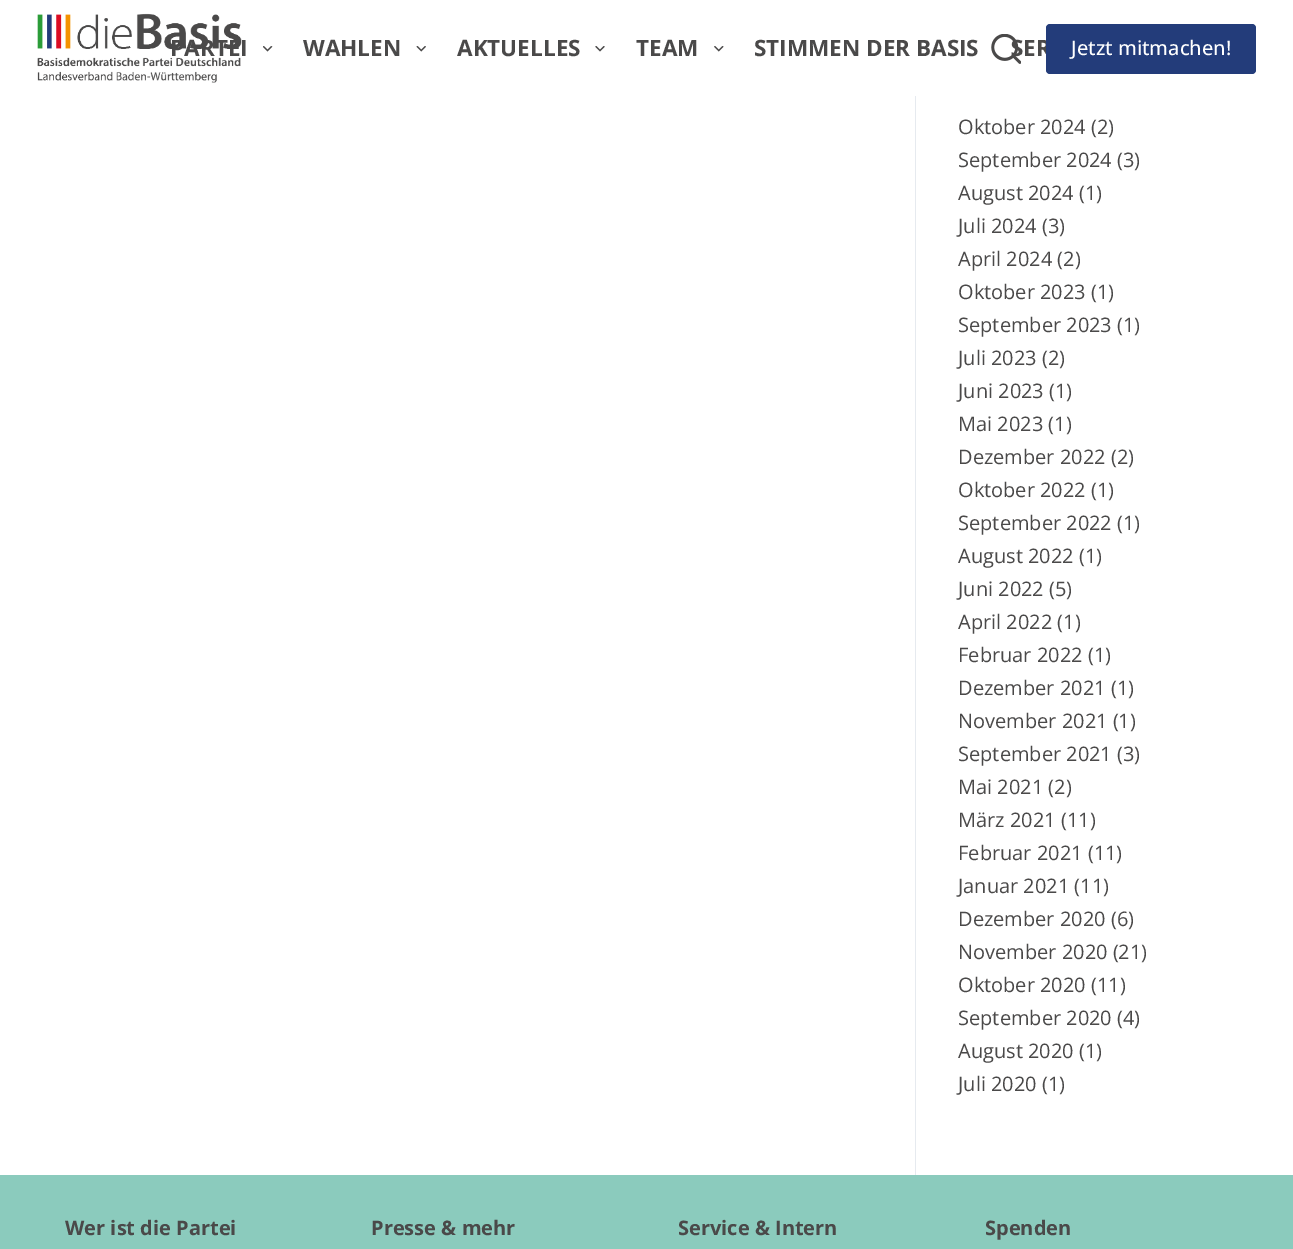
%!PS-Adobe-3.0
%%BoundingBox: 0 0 1293 1249
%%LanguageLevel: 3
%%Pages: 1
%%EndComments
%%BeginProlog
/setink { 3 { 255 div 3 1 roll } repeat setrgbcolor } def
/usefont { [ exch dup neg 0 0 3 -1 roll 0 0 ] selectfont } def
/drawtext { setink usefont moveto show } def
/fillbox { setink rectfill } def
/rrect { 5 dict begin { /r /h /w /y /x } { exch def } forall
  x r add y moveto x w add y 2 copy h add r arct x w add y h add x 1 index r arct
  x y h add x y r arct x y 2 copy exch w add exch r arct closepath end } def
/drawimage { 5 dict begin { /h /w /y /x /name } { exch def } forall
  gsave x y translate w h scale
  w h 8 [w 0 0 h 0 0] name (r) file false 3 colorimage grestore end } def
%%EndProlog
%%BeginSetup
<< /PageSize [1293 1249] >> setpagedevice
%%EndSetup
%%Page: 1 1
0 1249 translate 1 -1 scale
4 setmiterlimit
0 0 1293 1249 255 255 255 fillbox
(assets/img1.rgb) 37 13 205 70 drawimage
(PARTEI) 170 56 /OpenSans-Bold 22.5 74 73 73 drawtext
(assets/img2.rgb) 263 46 10 6 drawimage
(WAHLEN) 303 56 /OpenSans-Bold 22.5 74 73 73 drawtext
(assets/img3.rgb) 416 46 10 6 drawimage
(AKTUELLES) 457 56 /OpenSans-Bold 22.5 74 73 73 drawtext
(assets/img4.rgb) 595 46 10 6 drawimage
(TEAM) 636 56 /OpenSans-Bold 22.5 74 73 73 drawtext
(assets/img5.rgb) 714 46 10 6 drawimage
(STIMMEN DER BASIS) 754 56 /OpenSans-Bold 22.5 74 73 73 drawtext
(SER) 1011 56 /OpenSans-Bold 22.5 74 73 73 drawtext
(assets/img6.rgb) 991 34 30 30 drawimage
35 60 122 setink
1046 24 210 50 4 rrect fill
(Jetzt mitmachen!) 1071 55 /OpenSans-Medium 20 255 255 255 drawtext
915 96 1 1079 230 234 239 fillbox
(Oktober 2024 \(2\)) 958 134 /OpenSans-Regular 20 74 73 73 drawtext
(September 2024 \(3\)) 958 167 /OpenSans-Regular 20 74 73 73 drawtext
(August 2024 \(1\)) 958 200 /OpenSans-Regular 20 74 73 73 drawtext
(Juli 2024 \(3\)) 958 233 /OpenSans-Regular 20 74 73 73 drawtext
(April 2024 \(2\)) 958 266 /OpenSans-Regular 20 74 73 73 drawtext
(Oktober 2023 \(1\)) 958 299 /OpenSans-Regular 20 74 73 73 drawtext
(September 2023 \(1\)) 958 332 /OpenSans-Regular 20 74 73 73 drawtext
(Juli 2023 \(2\)) 958 365 /OpenSans-Regular 20 74 73 73 drawtext
(Juni 2023 \(1\)) 958 398 /OpenSans-Regular 20 74 73 73 drawtext
(Mai 2023 \(1\)) 958 431 /OpenSans-Regular 20 74 73 73 drawtext
(Dezember 2022 \(2\)) 958 464 /OpenSans-Regular 20 74 73 73 drawtext
(Oktober 2022 \(1\)) 958 497 /OpenSans-Regular 20 74 73 73 drawtext
(September 2022 \(1\)) 958 530 /OpenSans-Regular 20 74 73 73 drawtext
(August 2022 \(1\)) 958 563 /OpenSans-Regular 20 74 73 73 drawtext
(Juni 2022 \(5\)) 958 596 /OpenSans-Regular 20 74 73 73 drawtext
(April 2022 \(1\)) 958 629 /OpenSans-Regular 20 74 73 73 drawtext
(Februar 2022 \(1\)) 958 662 /OpenSans-Regular 20 74 73 73 drawtext
(Dezember 2021 \(1\)) 958 695 /OpenSans-Regular 20 74 73 73 drawtext
(November 2021 \(1\)) 958 728 /OpenSans-Regular 20 74 73 73 drawtext
(September 2021 \(3\)) 958 761 /OpenSans-Regular 20 74 73 73 drawtext
(Mai 2021 \(2\)) 958 794 /OpenSans-Regular 20 74 73 73 drawtext
(März 2021 \(11\)) 958 827 /OpenSans-Regular 20 74 73 73 drawtext
(Februar 2021 \(11\)) 958 860 /OpenSans-Regular 20 74 73 73 drawtext
(Januar 2021 \(11\)) 958 893 /OpenSans-Regular 20 74 73 73 drawtext
(Dezember 2020 \(6\)) 958 926 /OpenSans-Regular 20 74 73 73 drawtext
(November 2020 \(21\)) 958 959 /OpenSans-Regular 20 74 73 73 drawtext
(Oktober 2020 \(11\)) 958 992 /OpenSans-Regular 20 74 73 73 drawtext
(September 2020 \(4\)) 958 1025 /OpenSans-Regular 20 74 73 73 drawtext
(August 2020 \(1\)) 958 1058 /OpenSans-Regular 20 74 73 73 drawtext
(Juli 2020 \(1\)) 958 1091 /OpenSans-Regular 20 74 73 73 drawtext
0 1175 1293 74 139 203 189 fillbox
(Wer ist die Partei) 65 1235 /OpenSans-Bold 20 74 73 73 drawtext
(Presse & mehr) 371 1235 /OpenSans-Bold 20 74 73 73 drawtext
(Service & Intern) 678 1235 /OpenSans-Bold 20 74 73 73 drawtext
(Spenden) 985 1235 /OpenSans-Bold 20 74 73 73 drawtext
showpage
%%EOF
